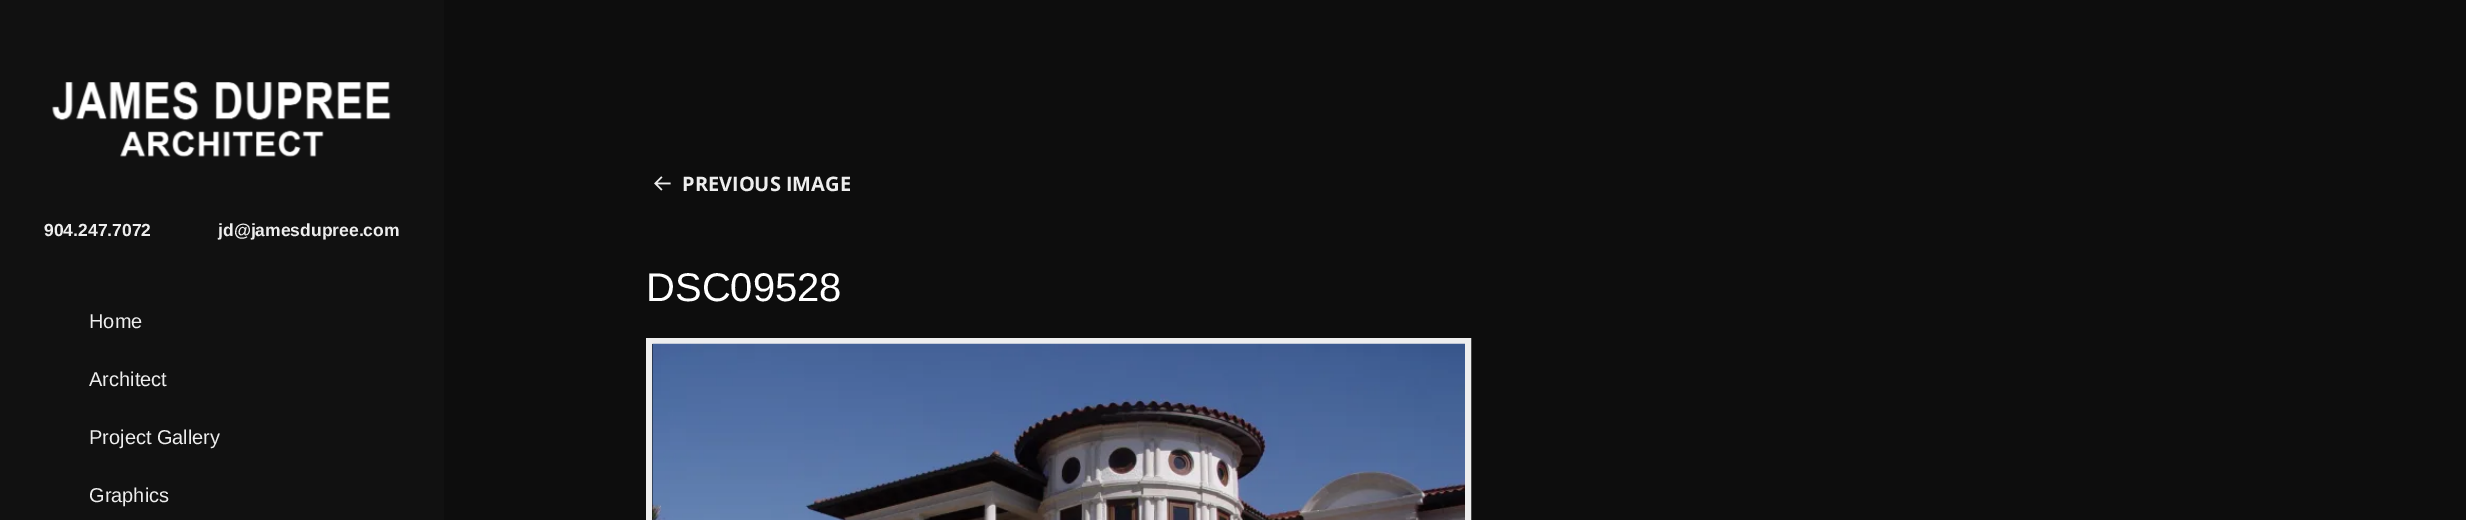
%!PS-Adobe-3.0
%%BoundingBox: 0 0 2466 520
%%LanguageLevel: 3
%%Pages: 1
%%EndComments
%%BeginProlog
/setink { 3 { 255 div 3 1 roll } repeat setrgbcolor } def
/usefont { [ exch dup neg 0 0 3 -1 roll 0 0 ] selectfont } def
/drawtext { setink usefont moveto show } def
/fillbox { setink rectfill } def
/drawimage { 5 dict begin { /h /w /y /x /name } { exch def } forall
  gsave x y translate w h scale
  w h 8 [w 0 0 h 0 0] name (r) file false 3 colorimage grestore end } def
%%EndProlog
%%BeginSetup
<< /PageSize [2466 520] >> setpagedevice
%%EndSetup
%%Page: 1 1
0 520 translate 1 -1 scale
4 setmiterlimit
0 0 2466 520 13 13 13 fillbox
0 0 444 520 17 17 17 fillbox
(assets/img1.rgb) 52 81 339 76 drawimage
(904.247.7072) 44 236 /LiberationSans-Bold 17.5 238 238 238 drawtext
(jd@jamesdupree.com) 218 236 /LiberationSans-Bold 17.5 238 238 238 drawtext
(Home) 89 328 /LiberationSans-Regular 20 238 238 238 drawtext
(Architect) 89 386 /LiberationSans-Regular 20 238 238 238 drawtext
(Project Gallery) 89 444 /LiberationSans-Regular 20 238 238 238 drawtext
(Graphics) 89 502 /LiberationSans-Regular 20 238 238 238 drawtext
(assets/img2.rgb) 654 176 17 15 drawimage
(PREVIOUS IMAGE) 682 191 /OpenSans-Bold 20 238 238 238 drawtext
(DSC09528) 646 301 /LiberationSans-Regular 40 255 255 255 drawtext
238 238 238 setink
6 setlinewidth
649 341 819 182 rectstroke
(assets/img3.rgb) 652 343 813 177 drawimage
showpage
%%EOF
